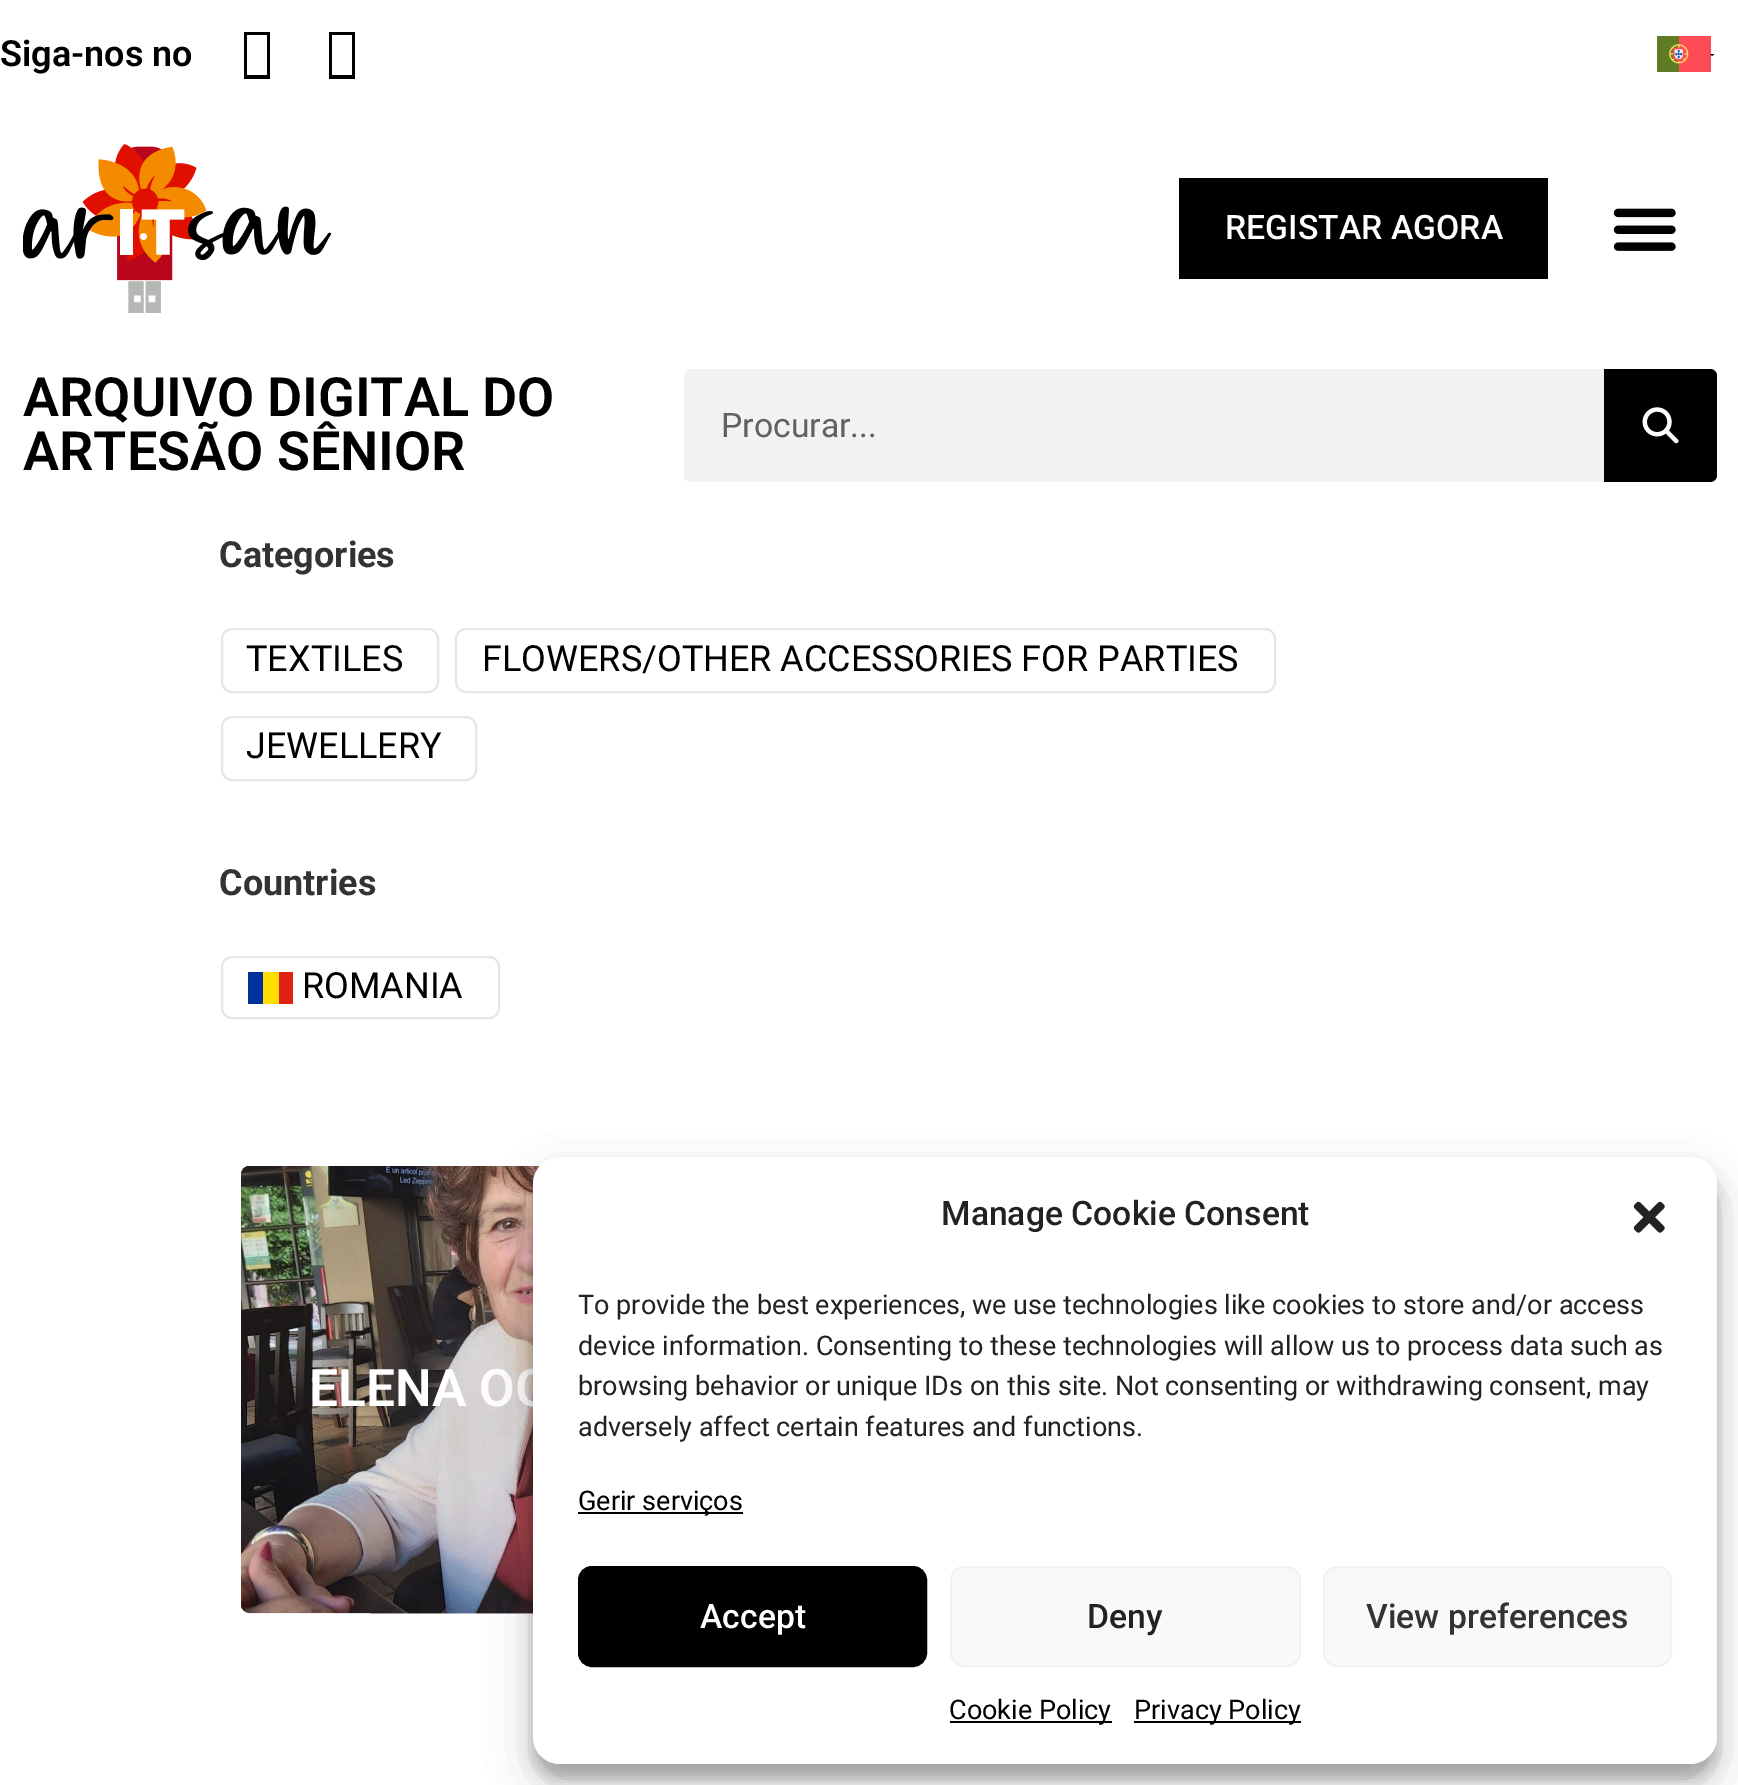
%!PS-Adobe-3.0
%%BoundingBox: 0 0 1738 1785
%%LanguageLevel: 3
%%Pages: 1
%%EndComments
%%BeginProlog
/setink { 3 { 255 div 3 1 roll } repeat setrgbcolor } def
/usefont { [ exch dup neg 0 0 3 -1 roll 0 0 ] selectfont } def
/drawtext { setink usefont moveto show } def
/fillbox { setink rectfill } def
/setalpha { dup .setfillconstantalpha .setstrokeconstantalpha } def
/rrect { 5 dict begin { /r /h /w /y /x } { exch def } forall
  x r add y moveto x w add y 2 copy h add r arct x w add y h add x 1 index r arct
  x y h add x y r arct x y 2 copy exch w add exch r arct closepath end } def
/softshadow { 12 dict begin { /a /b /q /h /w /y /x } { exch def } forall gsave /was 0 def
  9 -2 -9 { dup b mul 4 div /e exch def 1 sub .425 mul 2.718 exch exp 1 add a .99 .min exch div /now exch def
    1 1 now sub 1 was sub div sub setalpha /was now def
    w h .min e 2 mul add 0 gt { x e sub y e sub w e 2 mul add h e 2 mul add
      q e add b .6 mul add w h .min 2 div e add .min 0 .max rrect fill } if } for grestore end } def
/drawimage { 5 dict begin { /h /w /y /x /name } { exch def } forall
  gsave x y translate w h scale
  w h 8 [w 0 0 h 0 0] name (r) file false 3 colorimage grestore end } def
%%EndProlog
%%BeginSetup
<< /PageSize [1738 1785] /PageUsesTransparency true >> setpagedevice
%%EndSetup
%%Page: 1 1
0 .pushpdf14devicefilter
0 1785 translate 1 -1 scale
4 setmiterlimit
0 0 1738 1785 255 255 255 fillbox
(Siga-nos no) 0 66 /Roboto-SemiBold 36 0 0 0 drawtext
244 79 moveto 244 32 lineto 270 32 lineto 270 79 lineto closepath 247 75 moveto 267 75 lineto 267 35 lineto 247 35 lineto closepath fill
329 79 moveto 329 32 lineto 355 32 lineto 355 79 lineto closepath 332 75 moveto 352 75 lineto 352 35 lineto 332 35 lineto closepath fill
(assets/img1.rgb) 1657 36 54 36 drawimage
1710 54 moveto 1714.5 54 lineto 1712 56 lineto closepath fill
(assets/img2.rgb) 23 144 308 169 drawimage
1179 178 369 101 0 0 0 fillbox
(REGISTAR AGORA) 1225 239 /Roboto-Medium 33.75 255 255 255 drawtext
(assets/img3.rgb) 1613 208 63 43 drawimage
(ARQUIVO DIGITAL DO) 23 416 /Roboto-SemiBold 54 0 0 0 drawtext
(ARTESÃO SÊNIOR) 23 470 /Roboto-SemiBold 54 0 0 0 drawtext
241 242 243 setink
684 369 1033 113 7 rrect fill
(Procurar...) 721 437 /Roboto-Regular 33.75 96 97 97 drawtext
0 0 0 setink
1604 369 moveto 1710 369 lineto 1714 369 1717 372 1717 376 curveto 1717 475 lineto 1717 479 1714 482 1710 482 curveto 1604 482 lineto closepath fill
(assets/img4.rgb) 1642 407 37 37 drawimage
(Categories) 219 567 /Roboto-Bold 36 51 51 51 drawtext
230 230 230 setink
2 setlinewidth
222 629 216 63 10 rrect stroke
(TEXTILES) 246 671 /Roboto-Regular 36 0 0 0 drawtext
230 230 230 setink
456 629 819 63 10 rrect stroke
(FLOWERS/OTHER ACCESSORIES FOR PARTIES) 482 671 /Roboto-Regular 36 0 0 0 drawtext
230 230 230 setink
222 717 254 63 10 rrect stroke
(JEWELLERY) 246 758 /Roboto-Regular 36 0 0 0 drawtext
(Countries) 219 895 /Roboto-Bold 36 51 51 51 drawtext
230 230 230 setink
222 957 277 61 10 rrect stroke
248 972 15 32 0 49 156 fillbox
263 972 16 32 255 222 0 fillbox
279 972 14 32 222 33 16 fillbox
(ROMANIA) 302 998 /Roboto-Regular 36 0 0 0 drawtext
(assets/img5.rgb) 241 1166 299 448 drawimage
(ELENA OG) 309 1406 /Roboto-SemiBold 51.75 255 255 255 drawtext
0 0 0 setink
533 1170 1184 608 27 7 0.23 softshadow
533 1179 1184 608 27 22.5 0.19 softshadow
255 255 255 setink
533 1157 1184 607 27 rrect fill
(Manage Cookie Consent) 941 1225 /Roboto-Medium 33.75 34 34 34 drawtext
(assets/img6.rgb) 1633 1201 32 32 drawimage
(To provide the best experiences, we use technologies like cookies to store and/or access) 578 1314 /Roboto-Regular 27 34 34 34 drawtext
(device information. Consenting to these technologies will allow us to process data such as) 578 1355 /Roboto-Regular 27 34 34 34 drawtext
(browsing behavior or unique IDs on this site. Not consenting or withdrawing consent, may) 578 1395 /Roboto-Regular 27 34 34 34 drawtext
(adversely affect certain features and functions.) 578 1436 /Roboto-Regular 27 34 34 34 drawtext
578 1512 165 2 0 0 0 fillbox
(Gerir serviços) 578 1510 /Roboto-Regular 27 0 0 0 drawtext
579 1567 347 99 13 rrect gsave fill grestore
stroke
(Accept) 700 1628 /Roboto-Medium 33.75 255 255 255 drawtext
249 249 249 setink
951 1567 349 99 13 rrect gsave fill grestore
242 242 242 setink
stroke
(Deny) 1087 1628 /Roboto-Medium 33.75 34 34 34 drawtext
249 249 249 setink
1324 1567 347 99 13 rrect gsave fill grestore
242 242 242 setink
stroke
(View preferences) 1366 1628 /Roboto-Medium 33.75 51 51 51 drawtext
950 1721 162 2 0 0 0 fillbox
(Cookie Policy) 949 1719 /Roboto-Regular 27 0 0 0 drawtext
1134 1721 167 2 0 0 0 fillbox
(Privacy Policy) 1134 1719 /Roboto-Regular 27 0 0 0 drawtext
.poppdf14devicefilter showpage
%%EOF
